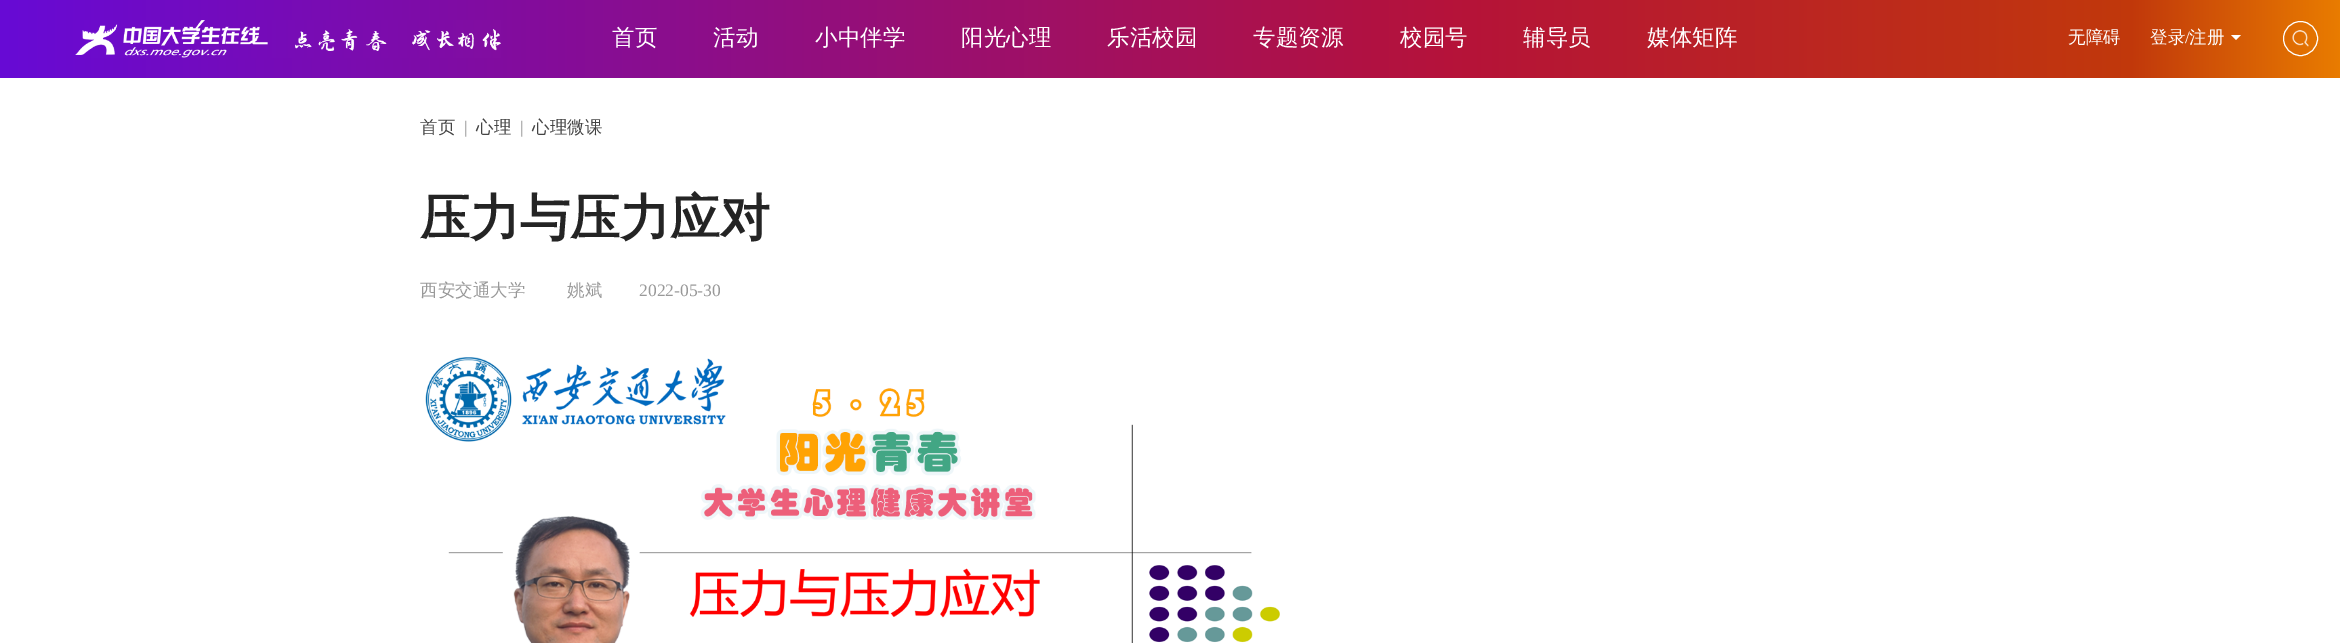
%!PS-Adobe-3.0
%%BoundingBox: 0 0 2340 643
%%LanguageLevel: 3
%%Pages: 1
%%EndComments
%%BeginProlog
/setink { 3 { 255 div 3 1 roll } repeat setrgbcolor } def
/usefont { [ exch dup neg 0 0 3 -1 roll 0 0 ] selectfont } def
/drawtext { setink usefont moveto show } def
/fillbox { setink rectfill } def
/disc { newpath 0 360 arc closepath } def
/drawimage { 5 dict begin { /h /w /y /x /name } { exch def } forall
  gsave x y translate w h scale
  w h 8 [w 0 0 h 0 0] name (r) file false 3 colorimage grestore end } def
%%EndProlog
%%BeginSetup
<< /PageSize [2340 643] >> setpagedevice
%%EndSetup
%%Page: 1 1
0 643 translate 1 -1 scale
4 setmiterlimit
0 0 2340 643 255 255 255 fillbox
gsave 0 0 moveto 2340 0 lineto 2340 78 lineto 0 78 lineto closepath clip newpath
<< /ShadingType 2 /ColorSpace /DeviceRGB /Coords [0 39 2340 39] /Extend [true true] /Function << /FunctionType 3 /Domain [0 1] /Functions [<< /FunctionType 2 /Domain [0 1] /C0 [0.404 0.039 0.835] /C1 [0.71 0.071 0.227] /N 1 >> << /FunctionType 2 /Domain [0 1] /C0 [0.71 0.071 0.227] /C1 [0.757 0.22 0.043] /N 1 >> << /FunctionType 2 /Domain [0 1] /C0 [0.757 0.22 0.043] /C1 [0.914 0.486 0] /N 1 >>] /Bounds [0.62 0.91] /Encode [0 1 0 1 0 1] >> >> shfill grestore
(assets/img1.rgb) 75 20 426 38 drawimage
(首页) 612 45 /WenQuanYiZenHei-Medium 22.5 255 255 255 drawtext
(活动) 713 45 /WenQuanYiZenHei-Medium 22.5 255 255 255 drawtext
(小中伴学) 815 45 /WenQuanYiZenHei-Medium 22.5 255 255 255 drawtext
(阳光心理) 961 45 /WenQuanYiZenHei-Medium 22.5 255 255 255 drawtext
(乐活校园) 1107 45 /WenQuanYiZenHei-Medium 22.5 255 255 255 drawtext
(专题资源) 1253 45 /WenQuanYiZenHei-Medium 22.5 255 255 255 drawtext
(校园号) 1400 45 /WenQuanYiZenHei-Medium 22.5 255 255 255 drawtext
(辅导员) 1523 45 /WenQuanYiZenHei-Medium 22.5 255 255 255 drawtext
(媒体矩阵) 1647 45 /WenQuanYiZenHei-Medium 22.5 255 255 255 drawtext
(无障碍) 2068 43 /WenQuanYiZenHei-Medium 17.5 255 255 255 drawtext
(登录) 2150 43 /WenQuanYiZenHei-Medium 17.5 255 255 255 drawtext
(/) 2185 43 /LiberationSerif-Regular 17.5 255 255 255 drawtext
(注册) 2189 43 /WenQuanYiZenHei-Medium 17.5 255 255 255 drawtext
2231 35 moveto 2241 35 lineto 2236 40 lineto closepath fill
2300.5 38.5 17 disc stroke
(assets/img2.rgb) 2292 30 17 17 drawimage
(首页) 420 133 /WenQuanYiZenHei-Medium 17.5 68 68 68 drawtext
(|) 464 133 /LiberationSerif-Regular 17.5 153 153 153 drawtext
(心理) 476 133 /WenQuanYiZenHei-Medium 17.5 68 68 68 drawtext
(|) 520 133 /LiberationSerif-Regular 17.5 153 153 153 drawtext
(心理微课) 532 133 /WenQuanYiZenHei-Medium 17.5 68 68 68 drawtext
(压力与压力应对) 420 235 /WenQuanYiZenHei-Bold 50 36 36 36 drawtext
(西安交通大学) 420 296 /WenQuanYiZenHei-Medium 17.5 153 153 153 drawtext
(姚斌) 567 296 /WenQuanYiZenHei-Medium 17.5 153 153 153 drawtext
(2022-05-30) 639 296 /LiberationSerif-Regular 17.5 153 153 153 drawtext
(assets/img3.rgb) 425 357 855 286 drawimage
showpage
%%EOF
